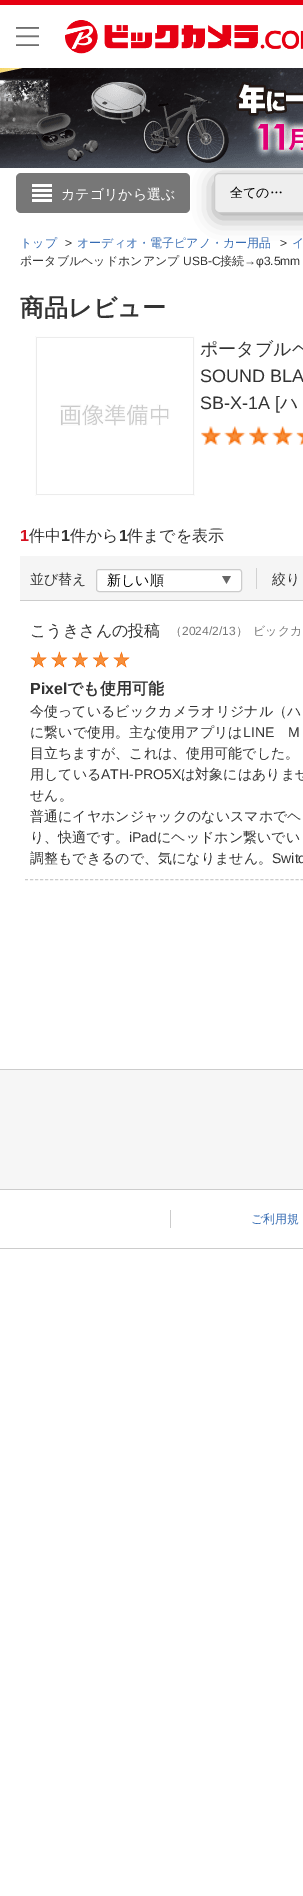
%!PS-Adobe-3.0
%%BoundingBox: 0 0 303 1896
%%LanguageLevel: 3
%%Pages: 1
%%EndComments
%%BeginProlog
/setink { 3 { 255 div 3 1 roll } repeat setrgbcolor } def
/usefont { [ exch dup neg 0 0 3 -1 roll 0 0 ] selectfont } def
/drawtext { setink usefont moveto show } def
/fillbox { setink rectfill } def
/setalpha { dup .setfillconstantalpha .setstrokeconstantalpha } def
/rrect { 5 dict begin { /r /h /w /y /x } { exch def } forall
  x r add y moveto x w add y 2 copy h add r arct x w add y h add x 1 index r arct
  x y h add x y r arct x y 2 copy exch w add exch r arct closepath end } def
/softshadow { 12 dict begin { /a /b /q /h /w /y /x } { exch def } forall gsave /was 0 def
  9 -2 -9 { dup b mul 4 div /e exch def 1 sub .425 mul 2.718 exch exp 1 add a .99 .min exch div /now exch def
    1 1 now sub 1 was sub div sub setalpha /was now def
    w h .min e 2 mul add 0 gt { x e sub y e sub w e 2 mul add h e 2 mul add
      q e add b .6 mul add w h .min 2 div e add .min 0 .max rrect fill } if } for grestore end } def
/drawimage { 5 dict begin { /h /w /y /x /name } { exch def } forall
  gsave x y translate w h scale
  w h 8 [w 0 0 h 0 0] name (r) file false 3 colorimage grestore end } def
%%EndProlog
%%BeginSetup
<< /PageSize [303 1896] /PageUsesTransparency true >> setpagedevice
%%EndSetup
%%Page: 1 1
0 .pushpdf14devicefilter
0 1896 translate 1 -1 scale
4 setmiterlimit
0 0 303 1896 255 255 255 fillbox
0 0 303 5 230 0 18 fillbox
(assets/img1.rgb) 16 27 23 19 drawimage
(assets/img2.rgb) 65 20 238 34 drawimage
(assets/img3.rgb) 0 68 303 100 drawimage
25 25 25 setink
214 178 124 40 5 10 0.4 softshadow
119 119 119 setink
16 173 174 40 5 rrect fill
(assets/img4.rgb) 32 184 20 18 drawimage
(カテゴリから選ぶ) 61 199 /WenQuanYiZenHei-Medium 14 255 255 255 drawtext
238 238 238 setink
219 173.5 moveto 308.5 173.5 lineto 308.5 212.5 lineto 219 212.5 lineto 216.5 212.5 214.5 210.5 214.5 208 curveto 214.5 178 lineto 214.5 175.5 216.5 173.5 219 173.5 curveto closepath gsave fill grestore
204 204 204 setink
stroke
(全ての…) 230 197 /WenQuanYiZenHei-Medium 13 0 0 0 drawtext
(トップ) 20 247 /WenQuanYiZenHei-Medium 12 53 107 179 drawtext
(>) 65 247 /LiberationSans-Regular 12 51 51 51 drawtext
(オーディオ・電子ピアノ・カー用品) 77 247 /WenQuanYiZenHei-Medium 12 53 107 179 drawtext
(>) 280 247 /LiberationSans-Regular 12 51 51 51 drawtext
(イ) 292 247 /WenQuanYiZenHei-Medium 12 53 107 179 drawtext
(ポータブルヘッドホンアンプ) 20 265 /WenQuanYiZenHei-Medium 12 51 51 51 drawtext
(USB-C) 183 265 /LiberationSans-Regular 12 51 51 51 drawtext
(接続) 220 265 /WenQuanYiZenHei-Medium 12 51 51 51 drawtext
(→φ3.5mm) 244 265 /LiberationSans-Regular 12 51 51 51 drawtext
(商品レビュー) 20 316 /WenQuanYiZenHei-Bold 24 51 51 51 drawtext
(assets/img5.rgb) 35 336 160 160 drawimage
(ポータブルヘ) 200 355 /WenQuanYiZenHei-Medium 18 51 51 51 drawtext
(SOUND BLA) 200 382 /LiberationSans-Regular 18 51 51 51 drawtext
(SB-X-1A [) 200 409 /LiberationSans-Regular 18 51 51 51 drawtext
(ハ) 280 409 /WenQuanYiZenHei-Medium 18 51 51 51 drawtext
(assets/img6.rgb) 201 426 102 19 drawimage
(1) 20 541 /LiberationSans-Bold 16 213 17 33 drawtext
(件中) 29 541 /WenQuanYiZenHei-Medium 16 51 51 51 drawtext
(1) 61 541 /LiberationSans-Bold 16 51 51 51 drawtext
(件から) 70 541 /WenQuanYiZenHei-Medium 16 51 51 51 drawtext
(1) 119 541 /LiberationSans-Bold 16 51 51 51 drawtext
(件までを表示) 127 541 /WenQuanYiZenHei-Medium 16 51 51 51 drawtext
20 556 283 44 245 245 245 fillbox
20 600 283 1 204 204 204 fillbox
256 568 1 21 209 209 209 fillbox
(並び替え) 30 584 /WenQuanYiZenHei-Medium 14 51 51 51 drawtext
255 255 255 setink
96 569 146 23 3 rrect fill
(assets/img7.rgb) 222 576 9 8 drawimage
204 204 204 setink
96.5 569.5 145 22 2.5 rrect stroke
(新しい順) 107 585 /WenQuanYiZenHei-Medium 14 0 0 0 drawtext
(絞り) 272 584 /WenQuanYiZenHei-Medium 14 51 51 51 drawtext
204 204 204 setink
[3 2.01] 0 setdash
25 879.5 moveto 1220 879.5 lineto stroke
(こうきさんの投稿) 30 636 /WenQuanYiZenHei-Medium 16 51 51 51 drawtext
(（) 170 635 /WenQuanYiZenHei-Medium 12 119 119 119 drawtext
(2024/2/13) 182 635 /LiberationSans-Regular 12 119 119 119 drawtext
(）) 236 635 /WenQuanYiZenHei-Medium 12 119 119 119 drawtext
(ビックカ) 253 635 /WenQuanYiZenHei-Medium 12 119 119 119 drawtext
(assets/img8.rgb) 30 651 100 17 drawimage
(Pixel) 30 694 /LiberationSans-Bold 16 51 51 51 drawtext
(でも使用可能) 67 694 /WenQuanYiZenHei-Bold 16 51 51 51 drawtext
(今使っているビックカメラオリジナル（ハ) 30 716 /WenQuanYiZenHei-Medium 14 51 51 51 drawtext
(に繋いで使用。主な使用アプリは) 30 737 /WenQuanYiZenHei-Medium 14 51 51 51 drawtext
(LINE) 243 737 /LiberationSans-Regular 14 51 51 51 drawtext
(M) 288 737 /LiberationSans-Regular 14 51 51 51 drawtext
(目立ちますが、これは、使用可能でした。) 30 758 /WenQuanYiZenHei-Medium 14 51 51 51 drawtext
(用している) 30 779 /WenQuanYiZenHei-Medium 14 51 51 51 drawtext
(ATH-PRO5X) 101 779 /LiberationSans-Regular 14 51 51 51 drawtext
(は対象にはありませ) 181 779 /WenQuanYiZenHei-Medium 14 51 51 51 drawtext
(せん。) 30 800 /WenQuanYiZenHei-Medium 14 51 51 51 drawtext
(普通にイヤホンジャックのないスマホでヘ) 30 821 /WenQuanYiZenHei-Medium 14 51 51 51 drawtext
(り、快適です。) 30 842 /WenQuanYiZenHei-Medium 14 51 51 51 drawtext
(iPad) 129 842 /LiberationSans-Regular 14 51 51 51 drawtext
(にヘッドホン繋いでい) 157 842 /WenQuanYiZenHei-Medium 14 51 51 51 drawtext
(調整もできるので、気になりません。) 30 863 /WenQuanYiZenHei-Medium 14 51 51 51 drawtext
(Switc) 272 863 /LiberationSans-Regular 14 51 51 51 drawtext
0 1069 303 1 204 204 204 fillbox
0 1070 303 119 246 246 246 fillbox
0 1189 303 1 204 204 204 fillbox
170 1210 1 18 204 204 204 fillbox
(ご利用規) 251 1223 /WenQuanYiZenHei-Medium 12 53 107 179 drawtext
0 1248 303 1 204 204 204 fillbox
.poppdf14devicefilter showpage
%%EOF
